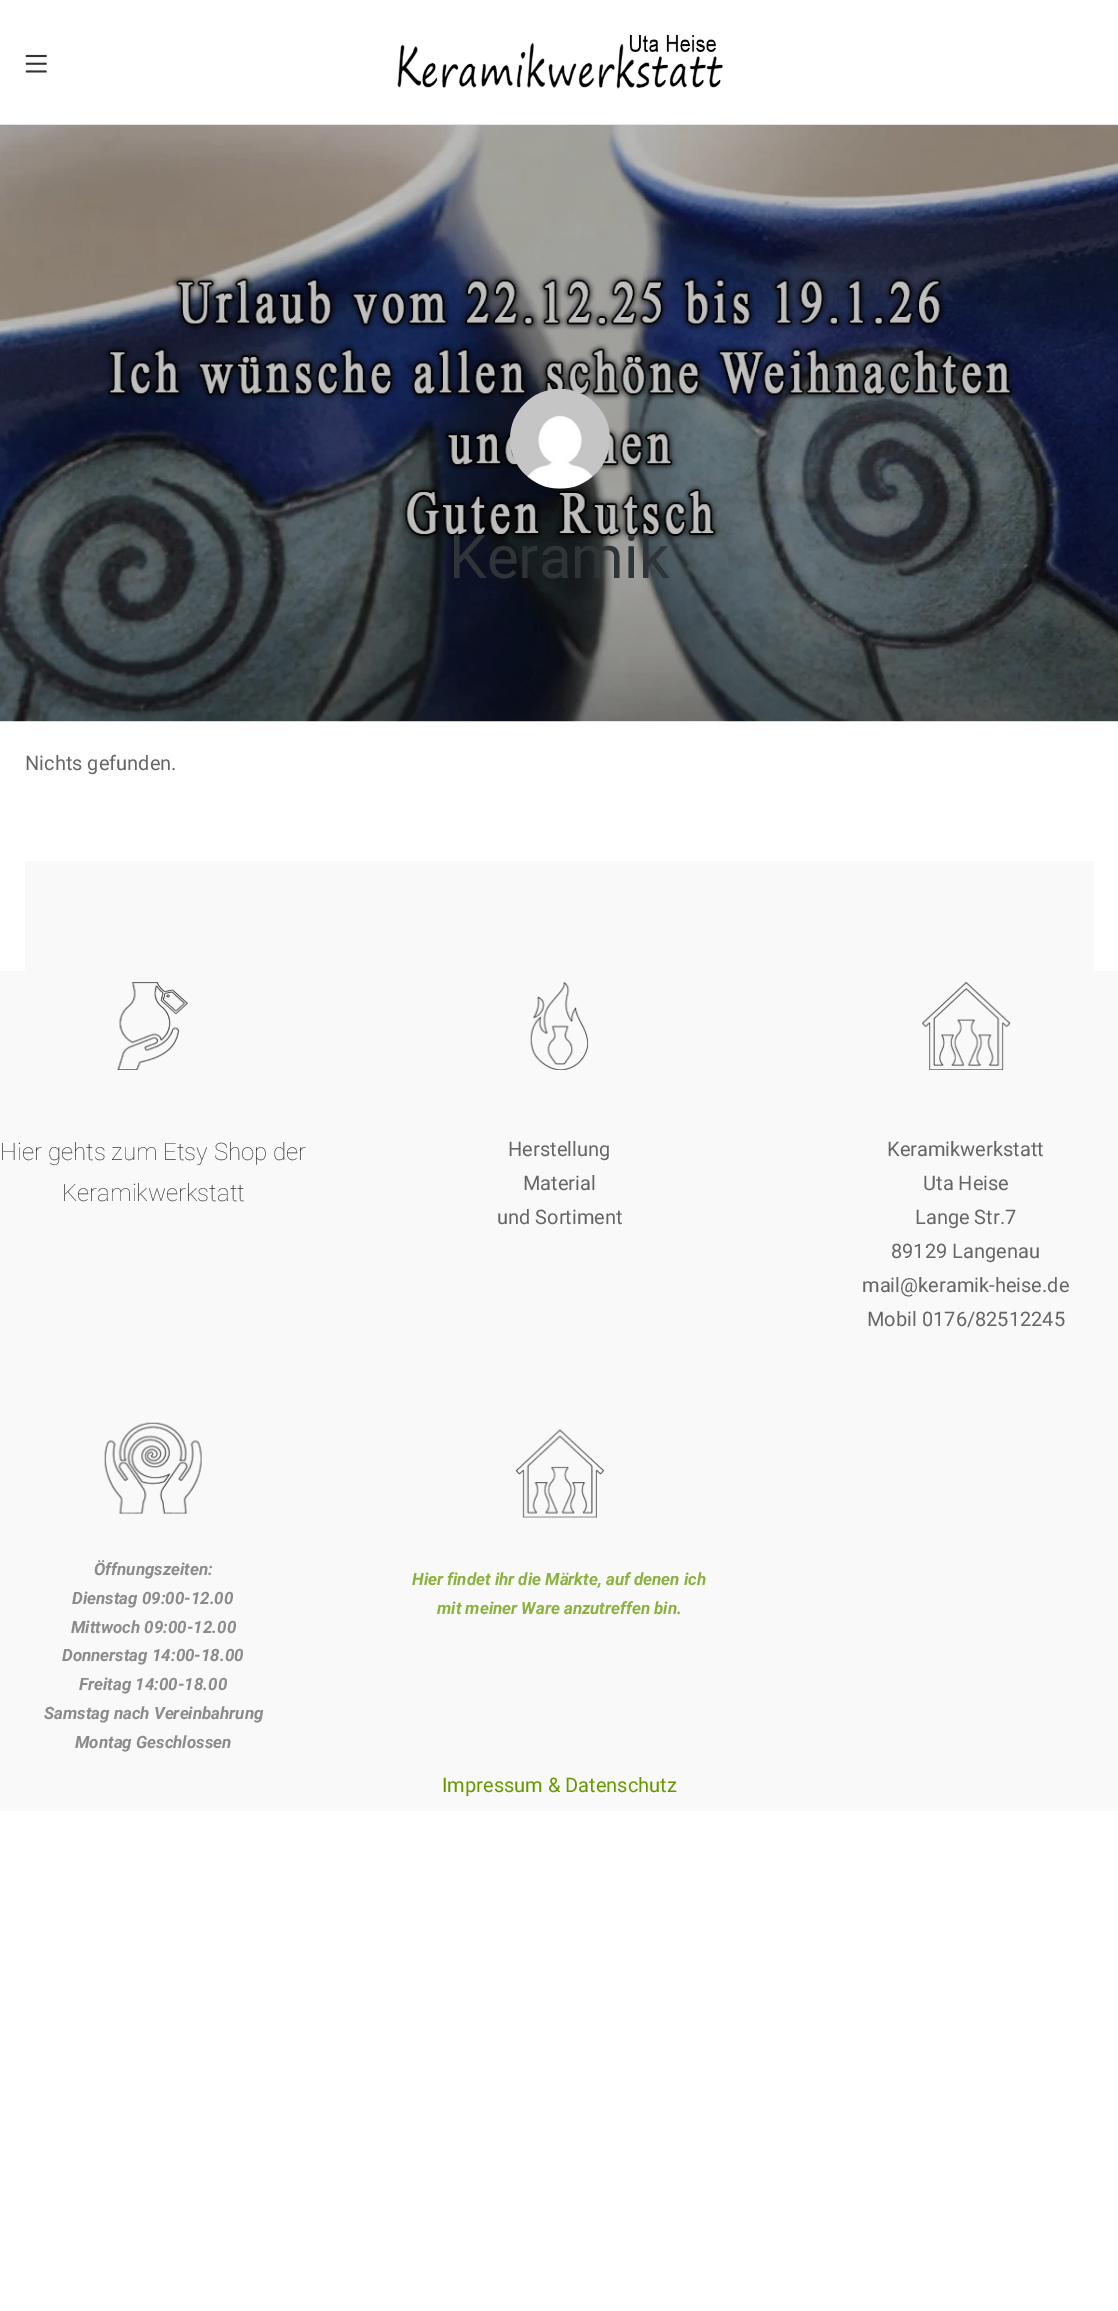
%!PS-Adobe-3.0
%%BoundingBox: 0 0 1118 2311
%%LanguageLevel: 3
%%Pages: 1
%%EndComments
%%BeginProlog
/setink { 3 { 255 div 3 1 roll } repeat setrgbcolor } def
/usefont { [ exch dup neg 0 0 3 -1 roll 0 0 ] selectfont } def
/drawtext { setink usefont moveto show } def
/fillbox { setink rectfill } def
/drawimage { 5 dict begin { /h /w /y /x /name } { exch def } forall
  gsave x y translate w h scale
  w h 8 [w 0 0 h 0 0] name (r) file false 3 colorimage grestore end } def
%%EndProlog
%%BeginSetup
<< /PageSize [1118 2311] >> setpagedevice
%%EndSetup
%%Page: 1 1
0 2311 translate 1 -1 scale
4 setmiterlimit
0 0 1118 2311 255 255 255 fillbox
0 124 1118 1 229 229 229 fillbox
(assets/img1.rgb) 25 54 22 19 drawimage
(assets/img2.rgb) 397 34 327 55 drawimage
(assets/img3.rgb) 0 125 1118 597 drawimage
(assets/img4.rgb) 510 388 100 101 drawimage
(Keramik) 449 578 /Roboto-Regular 60 47 52 57 drawtext
(Nichts gefunden.) 25 770 /Roboto-Regular 20 102 102 102 drawtext
25 861 1069 110 249 249 249 fillbox
0 971 1118 840 249 249 249 fillbox
(assets/img5.rgb) 117 982 71 88 drawimage
(Hier gehts zum Etsy Shop der) 0 1160 /Roboto-Thin 24 51 51 51 drawtext
(Keramikwerkstatt) 62 1201 /Roboto-Thin 24 51 51 51 drawtext
(assets/img6.rgb) 530 982 59 88 drawimage
(Herstellung) 508 1156 /Roboto-Regular 20 102 102 102 drawtext
(Material) 523 1190 /Roboto-Regular 20 102 102 102 drawtext
(und Sortiment) 497 1224 /Roboto-Regular 20 102 102 102 drawtext
(assets/img7.rgb) 922 982 89 88 drawimage
(Keramikwerkstatt) 887 1156 /Roboto-Regular 20 102 102 102 drawtext
(Uta Heise) 923 1190 /Roboto-Regular 20 102 102 102 drawtext
(Lange Str.7) 915 1224 /Roboto-Regular 20 102 102 102 drawtext
(89129 Langenau) 891 1258 /Roboto-Regular 20 102 102 102 drawtext
(mail@keramik-heise.de) 862 1292 /Roboto-Regular 20 102 102 102 drawtext
(Mobil 0176/82512245) 867 1326 /Roboto-Regular 20 102 102 102 drawtext
(assets/img8.rgb) 104 1422 98 92 drawimage
(Öffnungszeiten:) 94 1575 /Roboto-BoldItalic 17 139 139 139 drawtext
(Dienstag 09:00-12.00) 72 1604 /Roboto-BoldItalic 17 139 139 139 drawtext
(Mittwoch 09:00-12.00) 71 1633 /Roboto-BoldItalic 17 139 139 139 drawtext
(Donnerstag 14:00-18.00) 62 1661 /Roboto-BoldItalic 17 139 139 139 drawtext
(Freitag 14:00-18.00) 79 1690 /Roboto-BoldItalic 17 139 139 139 drawtext
(Samstag nach Vereinbahrung) 44 1719 /Roboto-BoldItalic 17 139 139 139 drawtext
(Montag Geschlossen) 75 1748 /Roboto-BoldItalic 17 139 139 139 drawtext
(assets/img9.rgb) 515 1429 89 89 drawimage
(Hier findet ihr die Märkte, auf denen ich) 412 1585 /Roboto-BoldItalic 17 139 177 62 drawtext
(mit meiner Ware anzutreffen bin.) 437 1614 /Roboto-BoldItalic 17 139 177 62 drawtext
(Impressum & Datenschutz) 442 1792 /Roboto-Regular 20 102 153 0 drawtext
showpage
%%EOF
